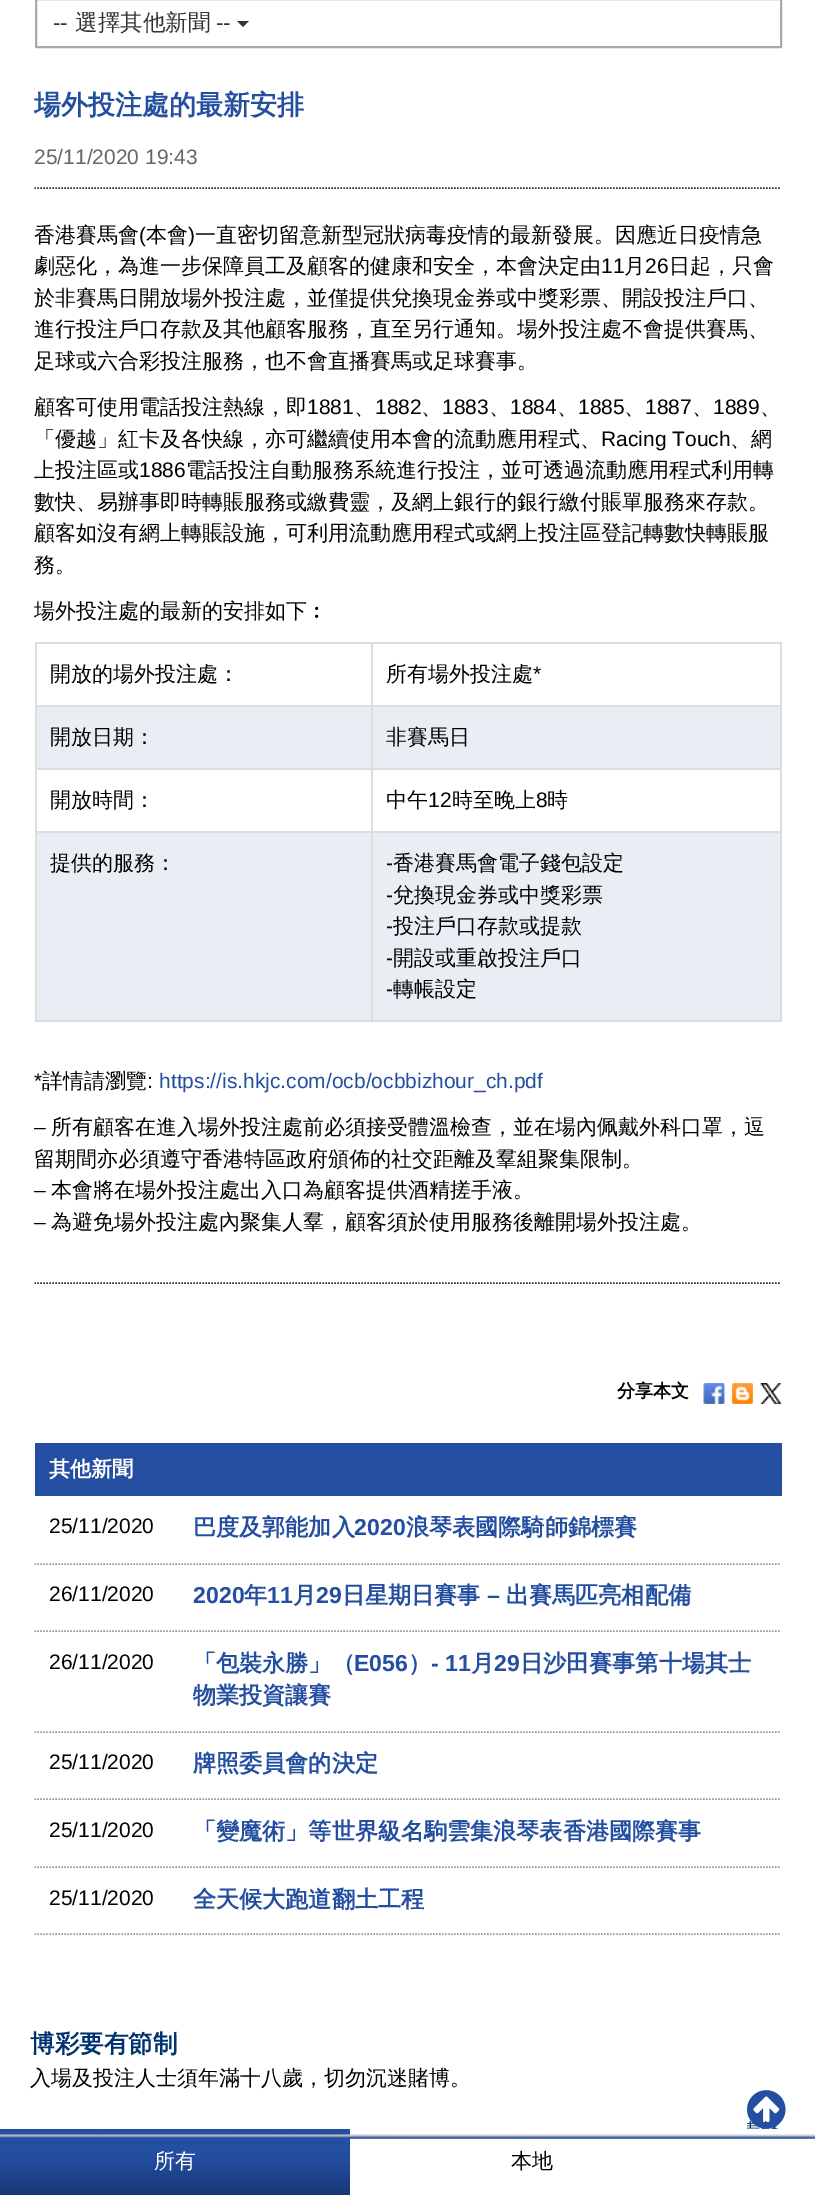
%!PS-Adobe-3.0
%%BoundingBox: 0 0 815 2203
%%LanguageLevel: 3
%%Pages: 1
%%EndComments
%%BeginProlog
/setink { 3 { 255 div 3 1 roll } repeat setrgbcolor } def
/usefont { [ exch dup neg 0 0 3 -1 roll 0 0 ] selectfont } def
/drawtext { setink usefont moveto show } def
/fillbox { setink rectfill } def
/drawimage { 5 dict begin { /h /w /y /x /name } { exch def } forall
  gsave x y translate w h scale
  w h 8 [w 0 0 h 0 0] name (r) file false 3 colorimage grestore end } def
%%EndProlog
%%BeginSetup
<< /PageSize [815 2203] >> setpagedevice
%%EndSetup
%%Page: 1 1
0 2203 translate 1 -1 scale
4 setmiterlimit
0 0 815 2203 255 255 255 fillbox
170 170 170 setink
2 setlinewidth
36 -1 745 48 rectstroke
(--) 53 30 /LiberationSans-Regular 22.5 51 51 51 drawtext
(選擇其他新聞) 75 30 /WenQuanYiZenHei-Medium 22.5 51 51 51 drawtext
(--) 216 30 /LiberationSans-Regular 22.5 51 51 51 drawtext
237 21 moveto 249 21 lineto 243 27 lineto closepath fill
1.5 setlinewidth
[1.5 1.5] 0 setdash
34.5 188 moveto 781.5 188 lineto stroke
(場外投注處的最新安排) 34 114 /WenQuanYiZenHei-Bold 27 36 79 161 drawtext
(25/11/2020 19:43) 34 164 /LiberationSans-Regular 21 102 102 102 drawtext
51 51 51 setink
34.5 1283 moveto 781.5 1283 lineto stroke
(香港賽馬會) 34 242 /WenQuanYiZenHei-Medium 21 0 0 0 drawtext
(\() 139 242 /LiberationSans-Regular 21 0 0 0 drawtext
(本會) 146 242 /WenQuanYiZenHei-Medium 21 0 0 0 drawtext
(\)) 188 242 /LiberationSans-Regular 21 0 0 0 drawtext
(一直密切留意新型冠狀病毒疫情的最新發展。因應近日疫情急) 195 242 /WenQuanYiZenHei-Medium 21 0 0 0 drawtext
(劇惡化，為進一步保障員工及顧客的健康和安全，本會決定由) 34 273 /WenQuanYiZenHei-Medium 21 0 0 0 drawtext
(11) 601 273 /LiberationSans-Regular 21 0 0 0 drawtext
(月) 624 273 /WenQuanYiZenHei-Medium 21 0 0 0 drawtext
(26) 645 273 /LiberationSans-Regular 21 0 0 0 drawtext
(日起，只會) 669 273 /WenQuanYiZenHei-Medium 21 0 0 0 drawtext
(於非賽馬日開放場外投注處，並僅提供兌換現金券或中獎彩票、開設投注戶口、) 34 305 /WenQuanYiZenHei-Medium 21 0 0 0 drawtext
(進行投注戶口存款及其他顧客服務，直至另行通知。場外投注處不會提供賽馬、) 34 336 /WenQuanYiZenHei-Medium 21 0 0 0 drawtext
(足球或六合彩投注服務，也不會直播賽馬或足球賽事。) 34 368 /WenQuanYiZenHei-Medium 21 0 0 0 drawtext
(顧客可使用電話投注熱線，即) 34 414 /WenQuanYiZenHei-Medium 21 0 0 0 drawtext
(1881) 307 414 /LiberationSans-Regular 21 0 0 0 drawtext
(、) 354 414 /WenQuanYiZenHei-Medium 21 0 0 0 drawtext
(1882) 375 414 /LiberationSans-Regular 21 0 0 0 drawtext
(、) 421 414 /WenQuanYiZenHei-Medium 21 0 0 0 drawtext
(1883) 442 414 /LiberationSans-Regular 21 0 0 0 drawtext
(、) 489 414 /WenQuanYiZenHei-Medium 21 0 0 0 drawtext
(1884) 510 414 /LiberationSans-Regular 21 0 0 0 drawtext
(、) 557 414 /WenQuanYiZenHei-Medium 21 0 0 0 drawtext
(1885) 578 414 /LiberationSans-Regular 21 0 0 0 drawtext
(、) 624 414 /WenQuanYiZenHei-Medium 21 0 0 0 drawtext
(1887) 645 414 /LiberationSans-Regular 21 0 0 0 drawtext
(、) 692 414 /WenQuanYiZenHei-Medium 21 0 0 0 drawtext
(1889) 713 414 /LiberationSans-Regular 21 0 0 0 drawtext
(、) 760 414 /WenQuanYiZenHei-Medium 21 0 0 0 drawtext
(「優越」紅卡及各快線，亦可繼續使用本會的流動應用程式、) 34 446 /WenQuanYiZenHei-Medium 21 0 0 0 drawtext
(Racing Touch) 601 446 /LiberationSans-Regular 21 0 0 0 drawtext
(、網) 730 446 /WenQuanYiZenHei-Medium 21 0 0 0 drawtext
(上投注區或) 34 477 /WenQuanYiZenHei-Medium 21 0 0 0 drawtext
(1886) 139 477 /LiberationSans-Regular 21 0 0 0 drawtext
(電話投注自動服務系統進行投注，並可透過流動應用程式利用轉) 186 477 /WenQuanYiZenHei-Medium 21 0 0 0 drawtext
(數快、易辦事即時轉賬服務或繳費靈，及網上銀行的銀行繳付賬單服務來存款。) 34 509 /WenQuanYiZenHei-Medium 21 0 0 0 drawtext
(顧客如沒有網上轉賬設施，可利用流動應用程式或網上投注區登記轉數快轉賬服) 34 540 /WenQuanYiZenHei-Medium 21 0 0 0 drawtext
(務。) 34 572 /WenQuanYiZenHei-Medium 21 0 0 0 drawtext
(場外投注處的最新的安排如下︰) 34 618 /WenQuanYiZenHei-Medium 21 0 0 0 drawtext
35 642 747 2 221 221 221 fillbox
780 642 2 380 221 221 221 fillbox
35 1020 747 2 221 221 221 fillbox
35 642 2 380 221 221 221 fillbox
(開放的場外投注處：) 50 681 /WenQuanYiZenHei-Medium 21 0 0 0 drawtext
371 705 411 2 221 221 221 fillbox
37 707 743 61 233 238 245 fillbox
371 768 411 2 221 221 221 fillbox
371 831 411 2 221 221 221 fillbox
37 833 743 187 233 238 245 fillbox
371 831 2 191 221 221 221 fillbox
35 831 337 2 221 221 221 fillbox
371 768 2 65 221 221 221 fillbox
35 768 337 2 221 221 221 fillbox
371 705 2 65 221 221 221 fillbox
35 705 337 2 221 221 221 fillbox
371 642 2 65 221 221 221 fillbox
(所有場外投注處) 386 681 /WenQuanYiZenHei-Medium 21 0 0 0 drawtext
(*) 533 681 /LiberationSans-Regular 21 0 0 0 drawtext
(開放日期：) 50 744 /WenQuanYiZenHei-Medium 21 0 0 0 drawtext
(非賽馬日) 386 744 /WenQuanYiZenHei-Medium 21 0 0 0 drawtext
(開放時間：) 50 807 /WenQuanYiZenHei-Medium 21 0 0 0 drawtext
(中午) 386 807 /WenQuanYiZenHei-Medium 21 0 0 0 drawtext
(12) 428 807 /LiberationSans-Regular 21 0 0 0 drawtext
(時至晚上) 452 807 /WenQuanYiZenHei-Medium 21 0 0 0 drawtext
(8) 536 807 /LiberationSans-Regular 21 0 0 0 drawtext
(時) 547 807 /WenQuanYiZenHei-Medium 21 0 0 0 drawtext
(提供的服務：) 50 870 /WenQuanYiZenHei-Medium 21 0 0 0 drawtext
(-) 386 870 /LiberationSans-Regular 21 0 0 0 drawtext
(香港賽馬會電子錢包設定) 393 870 /WenQuanYiZenHei-Medium 21 0 0 0 drawtext
(-) 386 902 /LiberationSans-Regular 21 0 0 0 drawtext
(兌換現金券或中獎彩票) 393 902 /WenQuanYiZenHei-Medium 21 0 0 0 drawtext
(-) 386 933 /LiberationSans-Regular 21 0 0 0 drawtext
(投注戶口存款或提款) 393 933 /WenQuanYiZenHei-Medium 21 0 0 0 drawtext
(-) 386 965 /LiberationSans-Regular 21 0 0 0 drawtext
(開設或重啟投注戶口) 393 965 /WenQuanYiZenHei-Medium 21 0 0 0 drawtext
(-) 386 996 /LiberationSans-Regular 21 0 0 0 drawtext
(轉帳設定) 393 996 /WenQuanYiZenHei-Medium 21 0 0 0 drawtext
(*) 34 1088 /LiberationSans-Regular 21 0 0 0 drawtext
(詳情請瀏覽) 42 1088 /WenQuanYiZenHei-Medium 21 0 0 0 drawtext
(:) 147 1088 /LiberationSans-Regular 21 0 0 0 drawtext
(https://is.hkjc.com/ocb/ocbbizhour_ch.pdf) 159 1088 /LiberationSans-Regular 21 36 79 161 drawtext
(–) 34 1134 /LiberationSans-Regular 21 0 0 0 drawtext
(所有顧客在進入場外投注處前必須接受體溫檢查，並在場內佩戴外科口罩，逗) 51 1134 /WenQuanYiZenHei-Medium 21 0 0 0 drawtext
(留期間亦必須遵守香港特區政府頒佈的社交距離及羣組聚集限制。) 34 1166 /WenQuanYiZenHei-Medium 21 0 0 0 drawtext
(–) 34 1197 /LiberationSans-Regular 21 0 0 0 drawtext
(本會將在場外投注處出入口為顧客提供酒精搓手液。) 51 1197 /WenQuanYiZenHei-Medium 21 0 0 0 drawtext
(–) 34 1229 /LiberationSans-Regular 21 0 0 0 drawtext
(為避免場外投注處內聚集人羣，顧客須於使用服務後離開場外投注處。) 51 1229 /WenQuanYiZenHei-Medium 21 0 0 0 drawtext
(分享本文) 617 1397 /WenQuanYiZenHei-Bold 18 0 0 0 drawtext
(assets/img1.rgb) 703 1383 22 21 drawimage
(assets/img2.rgb) 732 1383 21 21 drawimage
(assets/img3.rgb) 760 1383 22 21 drawimage
35 1443 747 53 36 79 161 fillbox
(其他新聞) 49 1476 /WenQuanYiZenHei-Bold 21 255 255 255 drawtext
(25/11/2020) 49 1533 /LiberationSans-Regular 21 0 0 0 drawtext
(巴度及郭能加入) 193 1535 /WenQuanYiZenHei-Bold 23.1 36 79 161 drawtext
(2020) 354 1535 /LiberationSans-Bold 23.1 36 79 161 drawtext
(浪琴表國際騎師錦標賽) 406 1535 /WenQuanYiZenHei-Bold 23.1 36 79 161 drawtext
153 153 153 setink
34.5 1564 moveto 781.5 1564 lineto stroke
(26/11/2020) 49 1601 /LiberationSans-Regular 21 0 0 0 drawtext
(2020) 193 1603 /LiberationSans-Bold 23.1 36 79 161 drawtext
(年) 244 1603 /WenQuanYiZenHei-Bold 23.1 36 79 161 drawtext
(11) 267 1603 /LiberationSans-Bold 23.1 36 79 161 drawtext
(月) 293 1603 /WenQuanYiZenHei-Bold 23.1 36 79 161 drawtext
(29) 316 1603 /LiberationSans-Bold 23.1 36 79 161 drawtext
(日星期日賽事) 342 1603 /WenQuanYiZenHei-Bold 23.1 36 79 161 drawtext
(–) 487 1603 /LiberationSans-Bold 23.1 36 79 161 drawtext
(出賽馬匹亮相配備) 506 1603 /WenQuanYiZenHei-Bold 23.1 36 79 161 drawtext
153 153 153 setink
34.5 1631 moveto 781.5 1631 lineto stroke
(26/11/2020) 49 1669 /LiberationSans-Regular 21 0 0 0 drawtext
(「包裝永勝」（) 193 1671 /WenQuanYiZenHei-Bold 23.1 36 79 161 drawtext
(E056) 354 1671 /LiberationSans-Bold 23.1 36 79 161 drawtext
(）) 408 1671 /WenQuanYiZenHei-Bold 23.1 36 79 161 drawtext
(- 11) 431 1671 /LiberationSans-Bold 23.1 36 79 161 drawtext
(月) 471 1671 /WenQuanYiZenHei-Bold 23.1 36 79 161 drawtext
(29) 494 1671 /LiberationSans-Bold 23.1 36 79 161 drawtext
(日沙田賽事第十場其士) 520 1671 /WenQuanYiZenHei-Bold 23.1 36 79 161 drawtext
(物業投資讓賽) 193 1703 /WenQuanYiZenHei-Bold 23.1 36 79 161 drawtext
153 153 153 setink
34.5 1732 moveto 781.5 1732 lineto stroke
(25/11/2020) 49 1769 /LiberationSans-Regular 21 0 0 0 drawtext
(牌照委員會的決定) 193 1771 /WenQuanYiZenHei-Bold 23.1 36 79 161 drawtext
153 153 153 setink
34.5 1799 moveto 781.5 1799 lineto stroke
(25/11/2020) 49 1837 /LiberationSans-Regular 21 0 0 0 drawtext
(「變魔術」等世界級名駒雲集浪琴表香港國際賽事) 193 1839 /WenQuanYiZenHei-Bold 23.1 36 79 161 drawtext
153 153 153 setink
34.5 1867 moveto 781.5 1867 lineto stroke
(25/11/2020) 49 1905 /LiberationSans-Regular 21 0 0 0 drawtext
(全天候大跑道翻土工程) 193 1907 /WenQuanYiZenHei-Bold 23.1 36 79 161 drawtext
153 153 153 setink
34.5 1934 moveto 781.5 1934 lineto stroke
gsave 0 2129 moveto 350 2129 lineto 350 2195 lineto 0 2195 lineto closepath clip newpath
<< /ShadingType 2 /ColorSpace /DeviceRGB /Coords [175 2129 175 2195] /Extend [true true] /Function << /FunctionType 3 /Domain [0 1] /Functions [<< /FunctionType 2 /Domain [0 1] /C0 [0.141 0.31 0.631] /C1 [0.141 0.31 0.631] /N 1 >> << /FunctionType 2 /Domain [0 1] /C0 [0.141 0.31 0.631] /C1 [0.086 0.216 0.455] /N 1 >>] /Bounds [0.41] /Encode [0 1 0 1] >> >> shfill grestore
(assets/img4.rgb) 0 2134 815 5 drawimage
(所有) 154 2168 /WenQuanYiZenHei-Medium 21 255 255 255 drawtext
(本地) 511 2168 /WenQuanYiZenHei-Medium 21 0 0 0 drawtext
(assets/img5.rgb) 747 2090 39 39 drawimage
(博彩要有節制) 30 2052 /WenQuanYiZenHei-Bold 24.5 0 50 111 drawtext
(入場及投注人士須年滿十八歲，切勿沉迷賭博。) 30 2085 /WenQuanYiZenHei-Medium 21 0 0 0 drawtext
showpage
%%EOF
